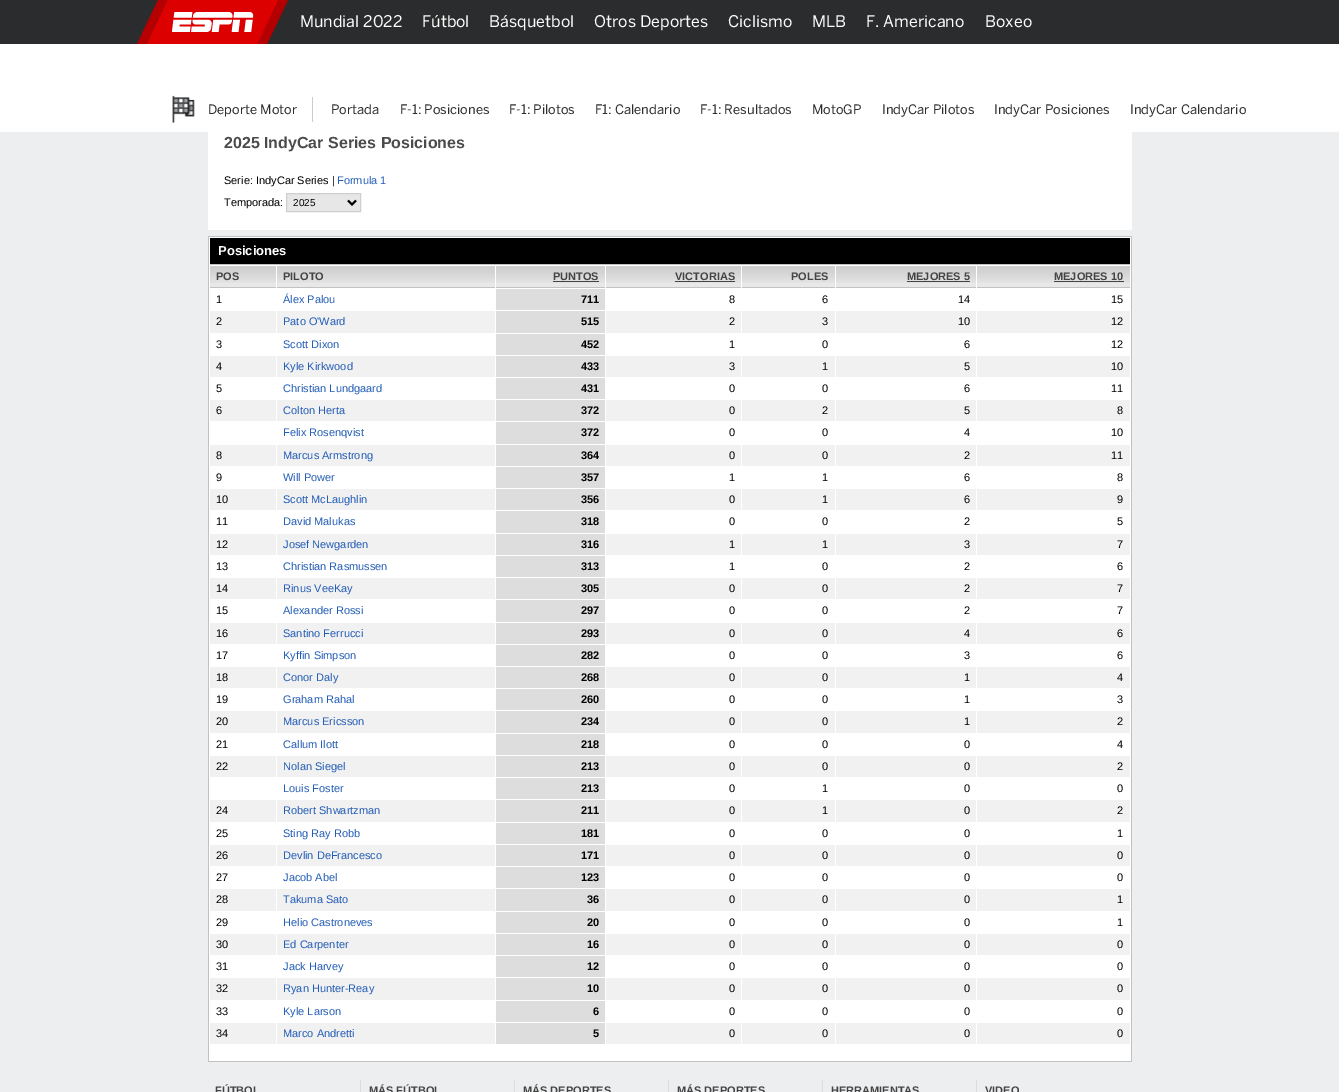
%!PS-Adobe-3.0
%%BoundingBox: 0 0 1339 1092
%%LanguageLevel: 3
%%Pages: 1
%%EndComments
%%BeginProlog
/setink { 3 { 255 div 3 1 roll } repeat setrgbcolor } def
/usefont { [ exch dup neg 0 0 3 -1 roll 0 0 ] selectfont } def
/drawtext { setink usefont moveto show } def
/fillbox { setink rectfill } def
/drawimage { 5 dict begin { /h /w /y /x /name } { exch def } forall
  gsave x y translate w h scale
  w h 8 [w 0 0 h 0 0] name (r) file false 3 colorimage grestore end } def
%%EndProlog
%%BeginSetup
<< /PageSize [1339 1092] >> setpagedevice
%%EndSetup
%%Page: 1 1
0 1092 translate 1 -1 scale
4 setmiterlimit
0 0 1339 1092 237 238 240 fillbox
0 44 1339 88 255 255 255 fillbox
0 0 1339 44 43 44 45 fillbox
180 0 0 setink
158 0 moveto 288 0 lineto 267 44 lineto 137 44 lineto closepath fill
221 0 0 setink
168 0 moveto 278 0 lineto 257 44 lineto 147 44 lineto closepath fill
(assets/img1.rgb) 172 12 82 20 drawimage
(Mundial 2022) 300 27 /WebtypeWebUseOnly-Regular 16 255 255 255 drawtext
(Fútbol) 422 27 /WebtypeWebUseOnly-Regular 16 255 255 255 drawtext
(Básquetbol) 489 27 /WebtypeWebUseOnly-Regular 16 255 255 255 drawtext
(Otros Deportes) 594 27 /WebtypeWebUseOnly-Regular 16 255 255 255 drawtext
(Ciclismo) 728 27 /WebtypeWebUseOnly-Regular 16 255 255 255 drawtext
(MLB) 812 27 /WebtypeWebUseOnly-Regular 16 255 255 255 drawtext
(F. Americano) 866 27 /WebtypeWebUseOnly-Regular 16 255 255 255 drawtext
(Boxeo) 985 27 /WebtypeWebUseOnly-Regular 16 255 255 255 drawtext
(assets/img2.rgb) 172 95 23 28 drawimage
(Deporte Motor) 208 114 /WebtypeWebUseOnly-Regular 13 43 44 45 drawtext
312 97 1 25 203 204 206 fillbox
(Portada) 331 114 /WebtypeWebUseOnly-Regular 13 43 44 45 drawtext
(F-1: Posiciones) 400 114 /WebtypeWebUseOnly-Regular 13 43 44 45 drawtext
(F-1: Pilotos) 509 114 /WebtypeWebUseOnly-Regular 13 43 44 45 drawtext
(F1: Calendario) 595 114 /WebtypeWebUseOnly-Regular 13 43 44 45 drawtext
(F-1: Resultados) 700 114 /WebtypeWebUseOnly-Regular 13 43 44 45 drawtext
(MotoGP) 812 114 /WebtypeWebUseOnly-Regular 13 43 44 45 drawtext
(IndyCar Pilotos) 882 114 /WebtypeWebUseOnly-Regular 13 43 44 45 drawtext
(IndyCar Posiciones) 994 114 /WebtypeWebUseOnly-Regular 13 43 44 45 drawtext
(IndyCar Calendario) 1130 114 /WebtypeWebUseOnly-Regular 13 43 44 45 drawtext
208 132 924 98 255 255 255 fillbox
(2025 IndyCar Series Posiciones) 224 148 /LiberationSans-Bold 16 75 75 75 drawtext
(Serie: IndyCar Series |) 224 184 /LiberationSans-Regular 11 0 0 0 drawtext
(Formula 1) 337 184 /LiberationSans-Regular 11 34 93 183 drawtext
(Temporada:) 224 206 /LiberationSans-Regular 11 0 0 0 drawtext
231 231 231 setink
286.5 193.5 moveto 360.5 193.5 lineto 360.5 211.5 lineto 286.5 211.5 lineto closepath gsave fill grestore
207 207 207 setink
stroke
0 0 0 setink
2 setlinewidth
348 200.5 moveto 352 204.5 lineto 356 200.5 lineto stroke
(2025) 293 206 /LiberationSans-Regular 10 0 0 0 drawtext
209 237 922 808 255 255 255 fillbox
208 236 924 1 194 194 194 fillbox
1131 236 1 809 194 194 194 fillbox
208 236 1 809 194 194 194 fillbox
210 238 920 26 0 0 0 fillbox
210 264 920 1 194 194 194 fillbox
(Posiciones) 218 255 /LiberationSans-Bold 13 255 255 255 drawtext
210 283 66 4 232 232 232 fillbox
(assets/img3.rgb) 210 266 66 17 drawimage
210 287 66 1 194 194 194 fillbox
(POS) 216 280 /LiberationSans-Bold 11 68 68 68 drawtext
277 283 218 4 232 232 232 fillbox
(assets/img4.rgb) 277 266 218 17 drawimage
277 287 218 1 194 194 194 fillbox
(PILOTO) 283 280 /LiberationSans-Bold 11 68 68 68 drawtext
496 283 109 4 232 232 232 fillbox
(assets/img5.rgb) 496 266 109 17 drawimage
496 287 109 1 194 194 194 fillbox
(PUNTOS) 553 280 /LiberationSans-Bold 11 68 68 68 drawtext
553 281 46 1 68 68 68 fillbox
606 283 135 4 232 232 232 fillbox
(assets/img6.rgb) 606 266 135 17 drawimage
606 287 135 1 194 194 194 fillbox
(VICTORIAS) 675 280 /LiberationSans-Bold 11 68 68 68 drawtext
675 281 60 1 68 68 68 fillbox
742 283 93 4 232 232 232 fillbox
(assets/img7.rgb) 742 266 93 17 drawimage
742 287 93 1 194 194 194 fillbox
(POLES) 791 280 /LiberationSans-Bold 11 68 68 68 drawtext
836 283 140 4 232 232 232 fillbox
(assets/img8.rgb) 836 266 140 17 drawimage
836 287 140 1 194 194 194 fillbox
(MEJORES 5) 907 280 /LiberationSans-Bold 11 68 68 68 drawtext
907 281 63 1 68 68 68 fillbox
977 283 153 4 232 232 232 fillbox
(assets/img9.rgb) 977 266 153 17 drawimage
977 287 153 1 194 194 194 fillbox
(MEJORES 10) 1054 280 /LiberationSans-Bold 11 68 68 68 drawtext
1054 281 70 1 68 68 68 fillbox
(1) 216 303 /LiberationSans-Regular 11 0 0 0 drawtext
(Álex Palou) 283 303 /LiberationSans-Regular 11 34 93 183 drawtext
496 289 109 21 221 221 221 fillbox
(711) 581 303 /LiberationSans-Bold 11 0 0 0 drawtext
(8) 729 303 /LiberationSans-Regular 11 0 0 0 drawtext
(6) 822 303 /LiberationSans-Regular 11 0 0 0 drawtext
(14) 958 303 /LiberationSans-Regular 11 0 0 0 drawtext
(15) 1111 303 /LiberationSans-Regular 11 0 0 0 drawtext
210 311 66 22 241 241 241 fillbox
(2) 216 325 /LiberationSans-Regular 11 0 0 0 drawtext
277 311 218 22 241 241 241 fillbox
(Pato O'Ward) 283 325 /LiberationSans-Regular 11 34 93 183 drawtext
496 311 109 22 221 221 221 fillbox
(515) 581 325 /LiberationSans-Bold 11 0 0 0 drawtext
606 311 135 22 241 241 241 fillbox
(2) 729 325 /LiberationSans-Regular 11 0 0 0 drawtext
742 311 93 22 241 241 241 fillbox
(3) 822 325 /LiberationSans-Regular 11 0 0 0 drawtext
836 311 140 22 241 241 241 fillbox
(10) 958 325 /LiberationSans-Regular 11 0 0 0 drawtext
977 311 153 22 241 241 241 fillbox
(12) 1111 325 /LiberationSans-Regular 11 0 0 0 drawtext
(3) 216 348 /LiberationSans-Regular 11 0 0 0 drawtext
(Scott Dixon) 283 348 /LiberationSans-Regular 11 34 93 183 drawtext
496 334 109 21 221 221 221 fillbox
(452) 581 348 /LiberationSans-Bold 11 0 0 0 drawtext
(1) 729 348 /LiberationSans-Regular 11 0 0 0 drawtext
(0) 822 348 /LiberationSans-Regular 11 0 0 0 drawtext
(6) 964 348 /LiberationSans-Regular 11 0 0 0 drawtext
(12) 1111 348 /LiberationSans-Regular 11 0 0 0 drawtext
210 356 66 21 241 241 241 fillbox
(4) 216 370 /LiberationSans-Regular 11 0 0 0 drawtext
277 356 218 21 241 241 241 fillbox
(Kyle Kirkwood) 283 370 /LiberationSans-Regular 11 34 93 183 drawtext
496 356 109 21 221 221 221 fillbox
(433) 581 370 /LiberationSans-Bold 11 0 0 0 drawtext
606 356 135 21 241 241 241 fillbox
(3) 729 370 /LiberationSans-Regular 11 0 0 0 drawtext
742 356 93 21 241 241 241 fillbox
(1) 822 370 /LiberationSans-Regular 11 0 0 0 drawtext
836 356 140 21 241 241 241 fillbox
(5) 964 370 /LiberationSans-Regular 11 0 0 0 drawtext
977 356 153 21 241 241 241 fillbox
(10) 1111 370 /LiberationSans-Regular 11 0 0 0 drawtext
(5) 216 392 /LiberationSans-Regular 11 0 0 0 drawtext
(Christian Lundgaard) 283 392 /LiberationSans-Regular 11 34 93 183 drawtext
496 378 109 21 221 221 221 fillbox
(431) 581 392 /LiberationSans-Bold 11 0 0 0 drawtext
(0) 729 392 /LiberationSans-Regular 11 0 0 0 drawtext
(0) 822 392 /LiberationSans-Regular 11 0 0 0 drawtext
(6) 964 392 /LiberationSans-Regular 11 0 0 0 drawtext
(11) 1111 392 /LiberationSans-Regular 11 0 0 0 drawtext
210 400 66 21 241 241 241 fillbox
(6) 216 414 /LiberationSans-Regular 11 0 0 0 drawtext
277 400 218 21 241 241 241 fillbox
(Colton Herta) 283 414 /LiberationSans-Regular 11 34 93 183 drawtext
496 400 109 21 221 221 221 fillbox
(372) 581 414 /LiberationSans-Bold 11 0 0 0 drawtext
606 400 135 21 241 241 241 fillbox
(0) 729 414 /LiberationSans-Regular 11 0 0 0 drawtext
742 400 93 21 241 241 241 fillbox
(2) 822 414 /LiberationSans-Regular 11 0 0 0 drawtext
836 400 140 21 241 241 241 fillbox
(5) 964 414 /LiberationSans-Regular 11 0 0 0 drawtext
977 400 153 21 241 241 241 fillbox
(8) 1117 414 /LiberationSans-Regular 11 0 0 0 drawtext
(Felix Rosenqvist) 283 436 /LiberationSans-Regular 11 34 93 183 drawtext
496 422 109 22 221 221 221 fillbox
(372) 581 436 /LiberationSans-Bold 11 0 0 0 drawtext
(0) 729 436 /LiberationSans-Regular 11 0 0 0 drawtext
(0) 822 436 /LiberationSans-Regular 11 0 0 0 drawtext
(4) 964 436 /LiberationSans-Regular 11 0 0 0 drawtext
(10) 1111 436 /LiberationSans-Regular 11 0 0 0 drawtext
210 445 66 21 241 241 241 fillbox
(8) 216 459 /LiberationSans-Regular 11 0 0 0 drawtext
277 445 218 21 241 241 241 fillbox
(Marcus Armstrong) 283 459 /LiberationSans-Regular 11 34 93 183 drawtext
496 445 109 21 221 221 221 fillbox
(364) 581 459 /LiberationSans-Bold 11 0 0 0 drawtext
606 445 135 21 241 241 241 fillbox
(0) 729 459 /LiberationSans-Regular 11 0 0 0 drawtext
742 445 93 21 241 241 241 fillbox
(0) 822 459 /LiberationSans-Regular 11 0 0 0 drawtext
836 445 140 21 241 241 241 fillbox
(2) 964 459 /LiberationSans-Regular 11 0 0 0 drawtext
977 445 153 21 241 241 241 fillbox
(11) 1111 459 /LiberationSans-Regular 11 0 0 0 drawtext
(9) 216 481 /LiberationSans-Regular 11 0 0 0 drawtext
(Will Power) 283 481 /LiberationSans-Regular 11 34 93 183 drawtext
496 467 109 21 221 221 221 fillbox
(357) 581 481 /LiberationSans-Bold 11 0 0 0 drawtext
(1) 729 481 /LiberationSans-Regular 11 0 0 0 drawtext
(1) 822 481 /LiberationSans-Regular 11 0 0 0 drawtext
(6) 964 481 /LiberationSans-Regular 11 0 0 0 drawtext
(8) 1117 481 /LiberationSans-Regular 11 0 0 0 drawtext
210 489 66 21 241 241 241 fillbox
(10) 216 503 /LiberationSans-Regular 11 0 0 0 drawtext
277 489 218 21 241 241 241 fillbox
(Scott McLaughlin) 283 503 /LiberationSans-Regular 11 34 93 183 drawtext
496 489 109 21 221 221 221 fillbox
(356) 581 503 /LiberationSans-Bold 11 0 0 0 drawtext
606 489 135 21 241 241 241 fillbox
(0) 729 503 /LiberationSans-Regular 11 0 0 0 drawtext
742 489 93 21 241 241 241 fillbox
(1) 822 503 /LiberationSans-Regular 11 0 0 0 drawtext
836 489 140 21 241 241 241 fillbox
(6) 964 503 /LiberationSans-Regular 11 0 0 0 drawtext
977 489 153 21 241 241 241 fillbox
(9) 1117 503 /LiberationSans-Regular 11 0 0 0 drawtext
(11) 216 525 /LiberationSans-Regular 11 0 0 0 drawtext
(David Malukas) 283 525 /LiberationSans-Regular 11 34 93 183 drawtext
496 511 109 22 221 221 221 fillbox
(318) 581 525 /LiberationSans-Bold 11 0 0 0 drawtext
(0) 729 525 /LiberationSans-Regular 11 0 0 0 drawtext
(0) 822 525 /LiberationSans-Regular 11 0 0 0 drawtext
(2) 964 525 /LiberationSans-Regular 11 0 0 0 drawtext
(5) 1117 525 /LiberationSans-Regular 11 0 0 0 drawtext
210 534 66 21 241 241 241 fillbox
(12) 216 548 /LiberationSans-Regular 11 0 0 0 drawtext
277 534 218 21 241 241 241 fillbox
(Josef Newgarden) 283 548 /LiberationSans-Regular 11 34 93 183 drawtext
496 534 109 21 221 221 221 fillbox
(316) 581 548 /LiberationSans-Bold 11 0 0 0 drawtext
606 534 135 21 241 241 241 fillbox
(1) 729 548 /LiberationSans-Regular 11 0 0 0 drawtext
742 534 93 21 241 241 241 fillbox
(1) 822 548 /LiberationSans-Regular 11 0 0 0 drawtext
836 534 140 21 241 241 241 fillbox
(3) 964 548 /LiberationSans-Regular 11 0 0 0 drawtext
977 534 153 21 241 241 241 fillbox
(7) 1117 548 /LiberationSans-Regular 11 0 0 0 drawtext
(13) 216 570 /LiberationSans-Regular 11 0 0 0 drawtext
(Christian Rasmussen) 283 570 /LiberationSans-Regular 11 34 93 183 drawtext
496 556 109 21 221 221 221 fillbox
(313) 581 570 /LiberationSans-Bold 11 0 0 0 drawtext
(1) 729 570 /LiberationSans-Regular 11 0 0 0 drawtext
(0) 822 570 /LiberationSans-Regular 11 0 0 0 drawtext
(2) 964 570 /LiberationSans-Regular 11 0 0 0 drawtext
(6) 1117 570 /LiberationSans-Regular 11 0 0 0 drawtext
210 578 66 21 241 241 241 fillbox
(14) 216 592 /LiberationSans-Regular 11 0 0 0 drawtext
277 578 218 21 241 241 241 fillbox
(Rinus VeeKay) 283 592 /LiberationSans-Regular 11 34 93 183 drawtext
496 578 109 21 221 221 221 fillbox
(305) 581 592 /LiberationSans-Bold 11 0 0 0 drawtext
606 578 135 21 241 241 241 fillbox
(0) 729 592 /LiberationSans-Regular 11 0 0 0 drawtext
742 578 93 21 241 241 241 fillbox
(0) 822 592 /LiberationSans-Regular 11 0 0 0 drawtext
836 578 140 21 241 241 241 fillbox
(2) 964 592 /LiberationSans-Regular 11 0 0 0 drawtext
977 578 153 21 241 241 241 fillbox
(7) 1117 592 /LiberationSans-Regular 11 0 0 0 drawtext
(15) 216 614 /LiberationSans-Regular 11 0 0 0 drawtext
(Alexander Rossi) 283 614 /LiberationSans-Regular 11 34 93 183 drawtext
496 600 109 22 221 221 221 fillbox
(297) 581 614 /LiberationSans-Bold 11 0 0 0 drawtext
(0) 729 614 /LiberationSans-Regular 11 0 0 0 drawtext
(0) 822 614 /LiberationSans-Regular 11 0 0 0 drawtext
(2) 964 614 /LiberationSans-Regular 11 0 0 0 drawtext
(7) 1117 614 /LiberationSans-Regular 11 0 0 0 drawtext
210 623 66 21 241 241 241 fillbox
(16) 216 637 /LiberationSans-Regular 11 0 0 0 drawtext
277 623 218 21 241 241 241 fillbox
(Santino Ferrucci) 283 637 /LiberationSans-Regular 11 34 93 183 drawtext
496 623 109 21 221 221 221 fillbox
(293) 581 637 /LiberationSans-Bold 11 0 0 0 drawtext
606 623 135 21 241 241 241 fillbox
(0) 729 637 /LiberationSans-Regular 11 0 0 0 drawtext
742 623 93 21 241 241 241 fillbox
(0) 822 637 /LiberationSans-Regular 11 0 0 0 drawtext
836 623 140 21 241 241 241 fillbox
(4) 964 637 /LiberationSans-Regular 11 0 0 0 drawtext
977 623 153 21 241 241 241 fillbox
(6) 1117 637 /LiberationSans-Regular 11 0 0 0 drawtext
(17) 216 659 /LiberationSans-Regular 11 0 0 0 drawtext
(Kyffin Simpson) 283 659 /LiberationSans-Regular 11 34 93 183 drawtext
496 645 109 21 221 221 221 fillbox
(282) 581 659 /LiberationSans-Bold 11 0 0 0 drawtext
(0) 729 659 /LiberationSans-Regular 11 0 0 0 drawtext
(0) 822 659 /LiberationSans-Regular 11 0 0 0 drawtext
(3) 964 659 /LiberationSans-Regular 11 0 0 0 drawtext
(6) 1117 659 /LiberationSans-Regular 11 0 0 0 drawtext
210 667 66 21 241 241 241 fillbox
(18) 216 681 /LiberationSans-Regular 11 0 0 0 drawtext
277 667 218 21 241 241 241 fillbox
(Conor Daly) 283 681 /LiberationSans-Regular 11 34 93 183 drawtext
496 667 109 21 221 221 221 fillbox
(268) 581 681 /LiberationSans-Bold 11 0 0 0 drawtext
606 667 135 21 241 241 241 fillbox
(0) 729 681 /LiberationSans-Regular 11 0 0 0 drawtext
742 667 93 21 241 241 241 fillbox
(0) 822 681 /LiberationSans-Regular 11 0 0 0 drawtext
836 667 140 21 241 241 241 fillbox
(1) 964 681 /LiberationSans-Regular 11 0 0 0 drawtext
977 667 153 21 241 241 241 fillbox
(4) 1117 681 /LiberationSans-Regular 11 0 0 0 drawtext
(19) 216 703 /LiberationSans-Regular 11 0 0 0 drawtext
(Graham Rahal) 283 703 /LiberationSans-Regular 11 34 93 183 drawtext
496 689 109 21 221 221 221 fillbox
(260) 581 703 /LiberationSans-Bold 11 0 0 0 drawtext
(0) 729 703 /LiberationSans-Regular 11 0 0 0 drawtext
(0) 822 703 /LiberationSans-Regular 11 0 0 0 drawtext
(1) 964 703 /LiberationSans-Regular 11 0 0 0 drawtext
(3) 1117 703 /LiberationSans-Regular 11 0 0 0 drawtext
210 711 66 22 241 241 241 fillbox
(20) 216 725 /LiberationSans-Regular 11 0 0 0 drawtext
277 711 218 22 241 241 241 fillbox
(Marcus Ericsson) 283 725 /LiberationSans-Regular 11 34 93 183 drawtext
496 711 109 22 221 221 221 fillbox
(234) 581 725 /LiberationSans-Bold 11 0 0 0 drawtext
606 711 135 22 241 241 241 fillbox
(0) 729 725 /LiberationSans-Regular 11 0 0 0 drawtext
742 711 93 22 241 241 241 fillbox
(0) 822 725 /LiberationSans-Regular 11 0 0 0 drawtext
836 711 140 22 241 241 241 fillbox
(1) 964 725 /LiberationSans-Regular 11 0 0 0 drawtext
977 711 153 22 241 241 241 fillbox
(2) 1117 725 /LiberationSans-Regular 11 0 0 0 drawtext
(21) 216 748 /LiberationSans-Regular 11 0 0 0 drawtext
(Callum Ilott) 283 748 /LiberationSans-Regular 11 34 93 183 drawtext
496 734 109 21 221 221 221 fillbox
(218) 581 748 /LiberationSans-Bold 11 0 0 0 drawtext
(0) 729 748 /LiberationSans-Regular 11 0 0 0 drawtext
(0) 822 748 /LiberationSans-Regular 11 0 0 0 drawtext
(0) 964 748 /LiberationSans-Regular 11 0 0 0 drawtext
(4) 1117 748 /LiberationSans-Regular 11 0 0 0 drawtext
210 756 66 21 241 241 241 fillbox
(22) 216 770 /LiberationSans-Regular 11 0 0 0 drawtext
277 756 218 21 241 241 241 fillbox
(Nolan Siegel) 283 770 /LiberationSans-Regular 11 34 93 183 drawtext
496 756 109 21 221 221 221 fillbox
(213) 581 770 /LiberationSans-Bold 11 0 0 0 drawtext
606 756 135 21 241 241 241 fillbox
(0) 729 770 /LiberationSans-Regular 11 0 0 0 drawtext
742 756 93 21 241 241 241 fillbox
(0) 822 770 /LiberationSans-Regular 11 0 0 0 drawtext
836 756 140 21 241 241 241 fillbox
(0) 964 770 /LiberationSans-Regular 11 0 0 0 drawtext
977 756 153 21 241 241 241 fillbox
(2) 1117 770 /LiberationSans-Regular 11 0 0 0 drawtext
(Louis Foster) 283 792 /LiberationSans-Regular 11 34 93 183 drawtext
496 778 109 21 221 221 221 fillbox
(213) 581 792 /LiberationSans-Bold 11 0 0 0 drawtext
(0) 729 792 /LiberationSans-Regular 11 0 0 0 drawtext
(1) 822 792 /LiberationSans-Regular 11 0 0 0 drawtext
(0) 964 792 /LiberationSans-Regular 11 0 0 0 drawtext
(0) 1117 792 /LiberationSans-Regular 11 0 0 0 drawtext
210 800 66 22 241 241 241 fillbox
(24) 216 814 /LiberationSans-Regular 11 0 0 0 drawtext
277 800 218 22 241 241 241 fillbox
(Robert Shwartzman) 283 814 /LiberationSans-Regular 11 34 93 183 drawtext
496 800 109 22 221 221 221 fillbox
(211) 581 814 /LiberationSans-Bold 11 0 0 0 drawtext
606 800 135 22 241 241 241 fillbox
(0) 729 814 /LiberationSans-Regular 11 0 0 0 drawtext
742 800 93 22 241 241 241 fillbox
(1) 822 814 /LiberationSans-Regular 11 0 0 0 drawtext
836 800 140 22 241 241 241 fillbox
(0) 964 814 /LiberationSans-Regular 11 0 0 0 drawtext
977 800 153 22 241 241 241 fillbox
(2) 1117 814 /LiberationSans-Regular 11 0 0 0 drawtext
(25) 216 837 /LiberationSans-Regular 11 0 0 0 drawtext
(Sting Ray Robb) 283 837 /LiberationSans-Regular 11 34 93 183 drawtext
496 823 109 21 221 221 221 fillbox
(181) 581 837 /LiberationSans-Bold 11 0 0 0 drawtext
(0) 729 837 /LiberationSans-Regular 11 0 0 0 drawtext
(0) 822 837 /LiberationSans-Regular 11 0 0 0 drawtext
(0) 964 837 /LiberationSans-Regular 11 0 0 0 drawtext
(1) 1117 837 /LiberationSans-Regular 11 0 0 0 drawtext
210 845 66 21 241 241 241 fillbox
(26) 216 859 /LiberationSans-Regular 11 0 0 0 drawtext
277 845 218 21 241 241 241 fillbox
(Devlin DeFrancesco) 283 859 /LiberationSans-Regular 11 34 93 183 drawtext
496 845 109 21 221 221 221 fillbox
(171) 581 859 /LiberationSans-Bold 11 0 0 0 drawtext
606 845 135 21 241 241 241 fillbox
(0) 729 859 /LiberationSans-Regular 11 0 0 0 drawtext
742 845 93 21 241 241 241 fillbox
(0) 822 859 /LiberationSans-Regular 11 0 0 0 drawtext
836 845 140 21 241 241 241 fillbox
(0) 964 859 /LiberationSans-Regular 11 0 0 0 drawtext
977 845 153 21 241 241 241 fillbox
(0) 1117 859 /LiberationSans-Regular 11 0 0 0 drawtext
(27) 216 881 /LiberationSans-Regular 11 0 0 0 drawtext
(Jacob Abel) 283 881 /LiberationSans-Regular 11 34 93 183 drawtext
496 867 109 21 221 221 221 fillbox
(123) 581 881 /LiberationSans-Bold 11 0 0 0 drawtext
(0) 729 881 /LiberationSans-Regular 11 0 0 0 drawtext
(0) 822 881 /LiberationSans-Regular 11 0 0 0 drawtext
(0) 964 881 /LiberationSans-Regular 11 0 0 0 drawtext
(0) 1117 881 /LiberationSans-Regular 11 0 0 0 drawtext
210 889 66 22 241 241 241 fillbox
(28) 216 903 /LiberationSans-Regular 11 0 0 0 drawtext
277 889 218 22 241 241 241 fillbox
(Takuma Sato) 283 903 /LiberationSans-Regular 11 34 93 183 drawtext
496 889 109 22 221 221 221 fillbox
(36) 587 903 /LiberationSans-Bold 11 0 0 0 drawtext
606 889 135 22 241 241 241 fillbox
(0) 729 903 /LiberationSans-Regular 11 0 0 0 drawtext
742 889 93 22 241 241 241 fillbox
(0) 822 903 /LiberationSans-Regular 11 0 0 0 drawtext
836 889 140 22 241 241 241 fillbox
(0) 964 903 /LiberationSans-Regular 11 0 0 0 drawtext
977 889 153 22 241 241 241 fillbox
(1) 1117 903 /LiberationSans-Regular 11 0 0 0 drawtext
(29) 216 926 /LiberationSans-Regular 11 0 0 0 drawtext
(Helio Castroneves) 283 926 /LiberationSans-Regular 11 34 93 183 drawtext
496 912 109 21 221 221 221 fillbox
(20) 587 926 /LiberationSans-Bold 11 0 0 0 drawtext
(0) 729 926 /LiberationSans-Regular 11 0 0 0 drawtext
(0) 822 926 /LiberationSans-Regular 11 0 0 0 drawtext
(0) 964 926 /LiberationSans-Regular 11 0 0 0 drawtext
(1) 1117 926 /LiberationSans-Regular 11 0 0 0 drawtext
210 934 66 21 241 241 241 fillbox
(30) 216 948 /LiberationSans-Regular 11 0 0 0 drawtext
277 934 218 21 241 241 241 fillbox
(Ed Carpenter) 283 948 /LiberationSans-Regular 11 34 93 183 drawtext
496 934 109 21 221 221 221 fillbox
(16) 587 948 /LiberationSans-Bold 11 0 0 0 drawtext
606 934 135 21 241 241 241 fillbox
(0) 729 948 /LiberationSans-Regular 11 0 0 0 drawtext
742 934 93 21 241 241 241 fillbox
(0) 822 948 /LiberationSans-Regular 11 0 0 0 drawtext
836 934 140 21 241 241 241 fillbox
(0) 964 948 /LiberationSans-Regular 11 0 0 0 drawtext
977 934 153 21 241 241 241 fillbox
(0) 1117 948 /LiberationSans-Regular 11 0 0 0 drawtext
(31) 216 970 /LiberationSans-Regular 11 0 0 0 drawtext
(Jack Harvey) 283 970 /LiberationSans-Regular 11 34 93 183 drawtext
496 956 109 21 221 221 221 fillbox
(12) 587 970 /LiberationSans-Bold 11 0 0 0 drawtext
(0) 729 970 /LiberationSans-Regular 11 0 0 0 drawtext
(0) 822 970 /LiberationSans-Regular 11 0 0 0 drawtext
(0) 964 970 /LiberationSans-Regular 11 0 0 0 drawtext
(0) 1117 970 /LiberationSans-Regular 11 0 0 0 drawtext
210 978 66 22 241 241 241 fillbox
(32) 216 992 /LiberationSans-Regular 11 0 0 0 drawtext
277 978 218 22 241 241 241 fillbox
(Ryan Hunter-Reay) 283 992 /LiberationSans-Regular 11 34 93 183 drawtext
496 978 109 22 221 221 221 fillbox
(10) 587 992 /LiberationSans-Bold 11 0 0 0 drawtext
606 978 135 22 241 241 241 fillbox
(0) 729 992 /LiberationSans-Regular 11 0 0 0 drawtext
742 978 93 22 241 241 241 fillbox
(0) 822 992 /LiberationSans-Regular 11 0 0 0 drawtext
836 978 140 22 241 241 241 fillbox
(0) 964 992 /LiberationSans-Regular 11 0 0 0 drawtext
977 978 153 22 241 241 241 fillbox
(0) 1117 992 /LiberationSans-Regular 11 0 0 0 drawtext
(33) 216 1015 /LiberationSans-Regular 11 0 0 0 drawtext
(Kyle Larson) 283 1015 /LiberationSans-Regular 11 34 93 183 drawtext
496 1001 109 21 221 221 221 fillbox
(6) 593 1015 /LiberationSans-Bold 11 0 0 0 drawtext
(0) 729 1015 /LiberationSans-Regular 11 0 0 0 drawtext
(0) 822 1015 /LiberationSans-Regular 11 0 0 0 drawtext
(0) 964 1015 /LiberationSans-Regular 11 0 0 0 drawtext
(0) 1117 1015 /LiberationSans-Regular 11 0 0 0 drawtext
210 1023 66 21 241 241 241 fillbox
(34) 216 1037 /LiberationSans-Regular 11 0 0 0 drawtext
277 1023 218 21 241 241 241 fillbox
(Marco Andretti) 283 1037 /LiberationSans-Regular 11 34 93 183 drawtext
496 1023 109 21 221 221 221 fillbox
(5) 593 1037 /LiberationSans-Bold 11 0 0 0 drawtext
606 1023 135 21 241 241 241 fillbox
(0) 729 1037 /LiberationSans-Regular 11 0 0 0 drawtext
742 1023 93 21 241 241 241 fillbox
(0) 822 1037 /LiberationSans-Regular 11 0 0 0 drawtext
836 1023 140 21 241 241 241 fillbox
(0) 964 1037 /LiberationSans-Regular 11 0 0 0 drawtext
977 1023 153 21 241 241 241 fillbox
(0) 1117 1037 /LiberationSans-Regular 11 0 0 0 drawtext
209 1045 922 16 255 255 255 fillbox
1131 1045 1 17 194 194 194 fillbox
208 1061 924 1 194 194 194 fillbox
208 1045 1 17 194 194 194 fillbox
360 1080 1 12 221 221 221 fillbox
(FÚTBOL) 215 1094 /LiberationSans-Bold 11 68 68 68 drawtext
514 1080 1 12 221 221 221 fillbox
(MÁS FÚTBOL) 369 1094 /LiberationSans-Bold 11 68 68 68 drawtext
668 1080 1 12 221 221 221 fillbox
(MÁS DEPORTES) 523 1094 /LiberationSans-Bold 11 68 68 68 drawtext
822 1080 1 12 221 221 221 fillbox
(MÁS DEPORTES) 677 1094 /LiberationSans-Bold 11 68 68 68 drawtext
976 1080 1 12 221 221 221 fillbox
(HERRAMIENTAS) 831 1094 /LiberationSans-Bold 11 68 68 68 drawtext
(VIDEO) 985 1094 /LiberationSans-Bold 11 68 68 68 drawtext
showpage
%%EOF
